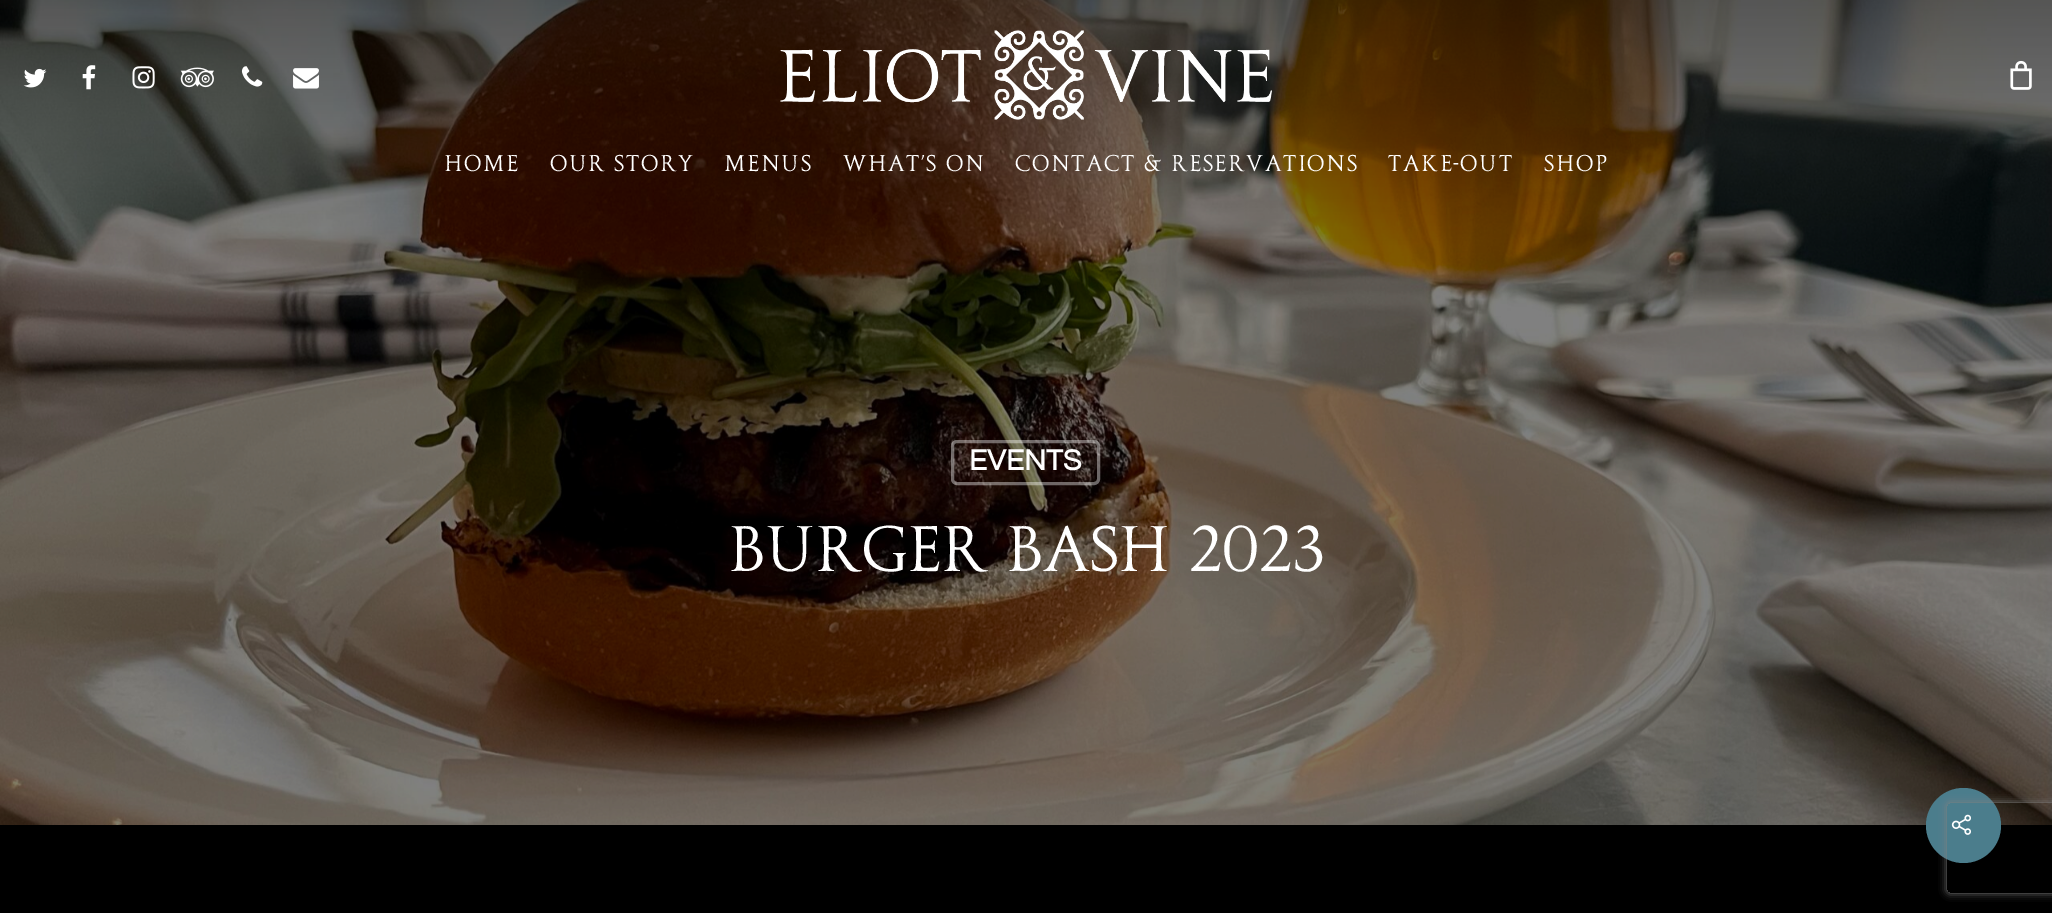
%!PS-Adobe-3.0
%%BoundingBox: 0 0 2052 913
%%LanguageLevel: 3
%%Pages: 1
%%EndComments
%%BeginProlog
/setink { 3 { 255 div 3 1 roll } repeat setrgbcolor } def
/usefont { [ exch dup neg 0 0 3 -1 roll 0 0 ] selectfont } def
/drawtext { setink usefont moveto show } def
/fillbox { setink rectfill } def
/setalpha { dup .setfillconstantalpha .setstrokeconstantalpha } def
/disc { newpath 0 360 arc closepath } def
/rrect { 5 dict begin { /r /h /w /y /x } { exch def } forall
  x r add y moveto x w add y 2 copy h add r arct x w add y h add x 1 index r arct
  x y h add x y r arct x y 2 copy exch w add exch r arct closepath end } def
/softshadow { 12 dict begin { /a /b /q /h /w /y /x } { exch def } forall gsave /was 0 def
  9 -2 -9 { dup b mul 4 div /e exch def 1 sub .425 mul 2.718 exch exp 1 add a .99 .min exch div /now exch def
    1 1 now sub 1 was sub div sub setalpha /was now def
    w h .min e 2 mul add 0 gt { x e sub y e sub w e 2 mul add h e 2 mul add
      q e add b .6 mul add w h .min 2 div e add .min 0 .max rrect fill } if } for grestore end } def
/drawimage { 5 dict begin { /h /w /y /x /name } { exch def } forall
  gsave x y translate w h scale
  w h 8 [w 0 0 h 0 0] name (r) file false 3 colorimage grestore end } def
%%EndProlog
%%BeginSetup
<< /PageSize [2052 913] /PageUsesTransparency true >> setpagedevice
%%EndSetup
%%Page: 1 1
0 .pushpdf14devicefilter
0 913 translate 1 -1 scale
4 setmiterlimit
0 0 2052 913 0 0 0 fillbox
(assets/img9.rgb) 0 0 2052 825 drawimage
(assets/img1.rgb) 23 68 24 20 drawimage
(assets/img2.rgb) 82 65 14 25 drawimage
(assets/img3.rgb) 132 66 23 23 drawimage
(assets/img4.rgb) 180 67 34 21 drawimage
(assets/img5.rgb) 241 66 22 21 drawimage
(assets/img6.rgb) 293 68 26 21 drawimage
(assets/img7.rgb) 780 30 492 90 drawimage
(assets/img8.rgb) 2010 60 22 30 drawimage
/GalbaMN-Regular 24 usefont
255 255 255 setink
444 171 moveto 1.5 0 (Home) ashow
550 171 moveto 1.5 0 (Our Story) ashow
724 171 moveto 1.5 0 (Menus) ashow
843 171 moveto 1.5 0 (What’s On) ashow
1015 171 moveto 1.5 0 (Contact & Reservations) ashow
1388 171 moveto 1.5 0 (Take-Out) ashow
1544 171 moveto 1.5 0 (Shop) ashow
0.4 setalpha
3 setlinewidth
952.5 441.5 146 42 4.5 rrect stroke
1 setalpha
(EVENTS) 969 470 /Questrial-Bold 30 255 255 255 drawtext
(Burger Bash 2023) 728 571 /GalbaMN-Regular 67.5 255 255 255 drawtext
75 125 140 setink
1963.5 825.5 37.5 disc fill
(assets/img10.rgb) 1951 814 20 21 drawimage
gsave
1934 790 moveto 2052 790 lineto 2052 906 lineto 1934 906 lineto closepath 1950 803 moveto 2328 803 lineto 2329.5 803 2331 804.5 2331 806 curveto 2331 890 lineto 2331 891.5 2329.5 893 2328 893 curveto 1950 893 lineto 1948.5 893 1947 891.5 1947 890 curveto 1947 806 lineto 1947 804.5 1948.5 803 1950 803 curveto closepath eoclip newpath
128 128 128 setink
1947 803 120 90 3 4 1 softshadow
grestore
.poppdf14devicefilter showpage
%%EOF
